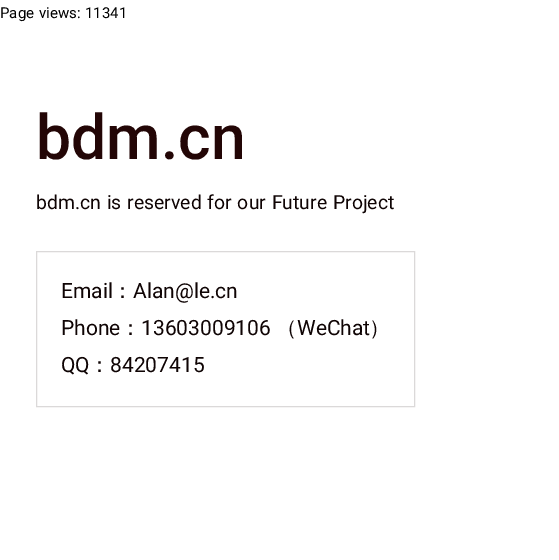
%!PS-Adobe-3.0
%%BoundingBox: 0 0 559 560
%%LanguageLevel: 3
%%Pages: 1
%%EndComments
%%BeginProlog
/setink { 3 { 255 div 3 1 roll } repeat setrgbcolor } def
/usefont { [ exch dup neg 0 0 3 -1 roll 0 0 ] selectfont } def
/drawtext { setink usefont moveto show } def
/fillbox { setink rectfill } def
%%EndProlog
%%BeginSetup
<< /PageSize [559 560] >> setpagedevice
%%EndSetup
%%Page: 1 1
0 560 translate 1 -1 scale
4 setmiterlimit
0 0 559 560 255 255 255 fillbox
/Roboto-Regular 15 usefont
0 0 0 setink
0 18 moveto 1 0 32 (Page views: 11341) widthshow
(bdm.cn) 36 159 /Roboto-Medium 62.5 35 6 6 drawtext
/Roboto-Regular 19.4 usefont
15 4 4 setink
36 209 moveto 1 0 32 (bdm.cn is reserved for our Future Project) widthshow
219 217 217 setink
36.5 251.5 378 155 rectstroke
(Email) 61 298 /Roboto-Regular 21 15 4 4 drawtext
(：) 112 298 /WenQuanYiZenHei-Medium 21 15 4 4 drawtext
(Alan@le.cn) 133 298 /Roboto-Regular 21 15 4 4 drawtext
(Phone) 61 335 /Roboto-Regular 21 15 4 4 drawtext
(：) 120 335 /WenQuanYiZenHei-Medium 21 15 4 4 drawtext
(13603009106) 141 335 /Roboto-Regular 21 15 4 4 drawtext
(（) 276 335 /WenQuanYiZenHei-Medium 21 15 4 4 drawtext
(WeChat) 297 335 /Roboto-Regular 21 15 4 4 drawtext
(）) 369 335 /WenQuanYiZenHei-Medium 21 15 4 4 drawtext
(QQ) 61 372 /Roboto-Regular 21 15 4 4 drawtext
(：) 89 372 /WenQuanYiZenHei-Medium 21 15 4 4 drawtext
(84207415) 110 372 /Roboto-Regular 21 15 4 4 drawtext
showpage
%%EOF
